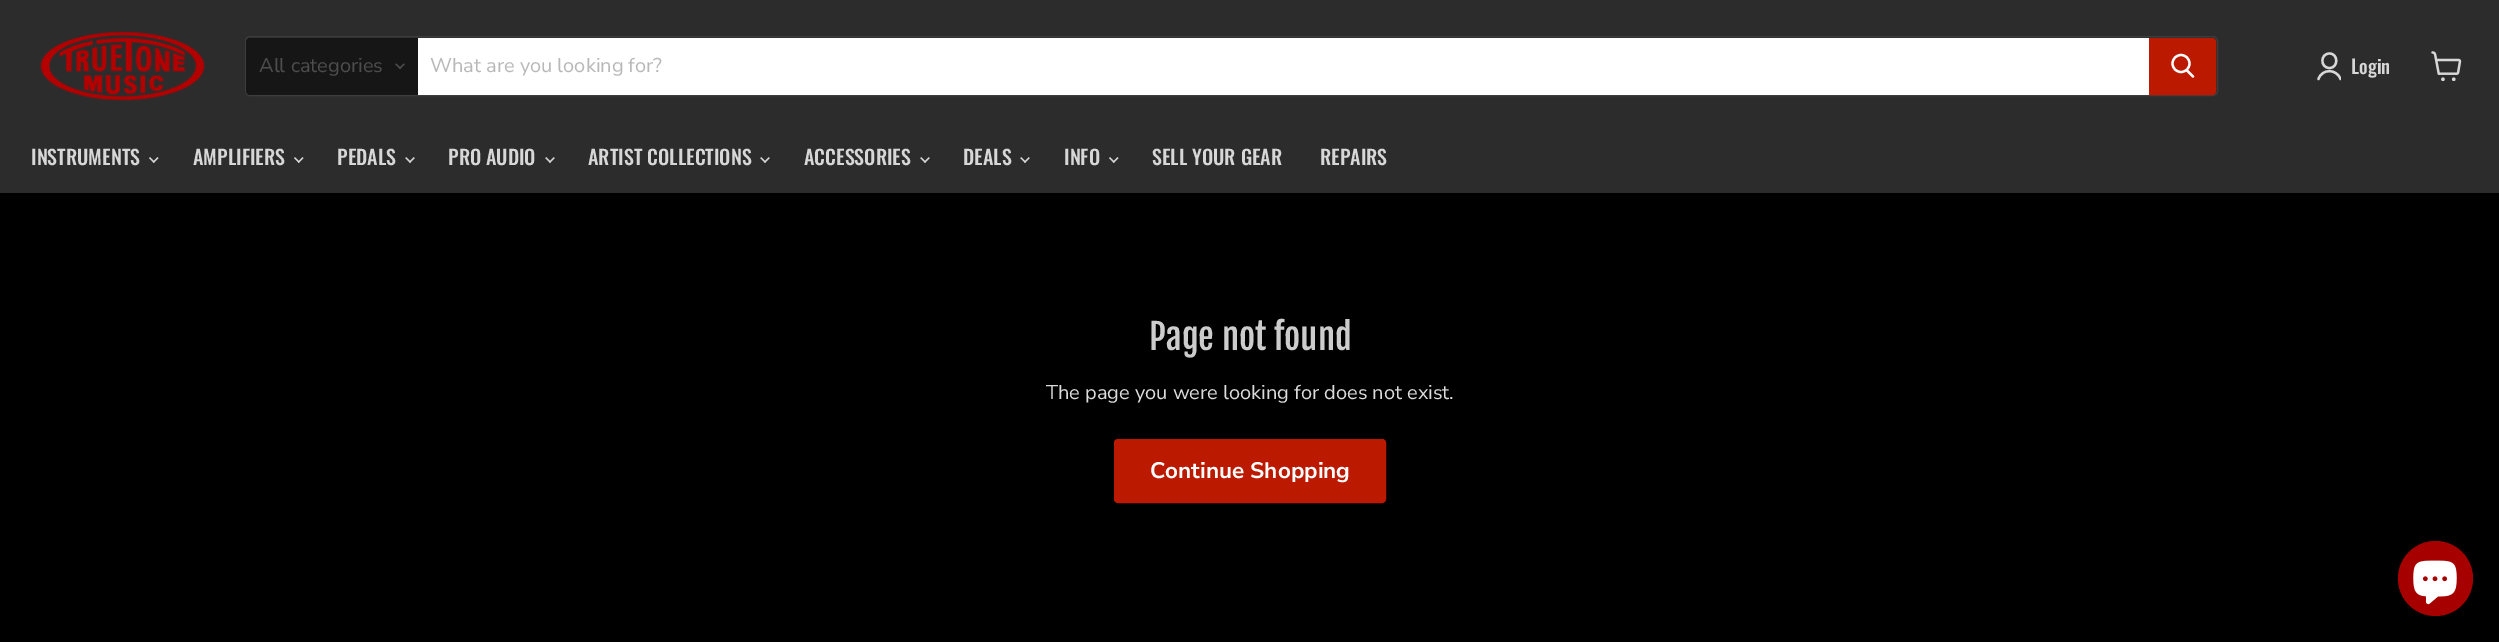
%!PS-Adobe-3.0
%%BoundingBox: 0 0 2499 642
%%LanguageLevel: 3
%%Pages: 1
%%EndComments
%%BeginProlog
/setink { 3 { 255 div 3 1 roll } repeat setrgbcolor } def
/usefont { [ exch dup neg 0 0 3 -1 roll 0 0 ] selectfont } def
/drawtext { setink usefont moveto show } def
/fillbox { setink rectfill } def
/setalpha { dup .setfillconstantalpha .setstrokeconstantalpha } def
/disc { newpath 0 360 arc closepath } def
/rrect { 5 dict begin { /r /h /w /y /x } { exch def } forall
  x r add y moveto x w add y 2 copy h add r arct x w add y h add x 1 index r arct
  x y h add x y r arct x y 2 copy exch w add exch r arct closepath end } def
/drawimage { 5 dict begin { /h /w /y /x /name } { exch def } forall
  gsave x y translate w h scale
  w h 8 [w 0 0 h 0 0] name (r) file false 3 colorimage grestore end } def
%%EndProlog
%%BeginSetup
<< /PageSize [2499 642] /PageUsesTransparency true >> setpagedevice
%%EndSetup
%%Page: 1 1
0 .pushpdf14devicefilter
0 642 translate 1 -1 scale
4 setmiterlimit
0 0 2499 642 0 0 0 fillbox
0 0 2499 193 45 44 44 fillbox
(assets/img1.rgb) 40 31 165 70 drawimage
0.2 setalpha
128 128 128 setink
245.5 36.5 1972 59 4.5 rrect stroke
1 setalpha
22 22 22 setink
250 38 moveto 418 38 lineto 418 95 lineto 250 95 lineto 248 95 246 93 246 91 curveto 246 42 lineto 246 40 248 38 250 38 curveto closepath fill
(All categories) 259 72 /NunitoSans-Regular 20 77 77 77 drawtext
(assets/img2.rgb) 395 63 10 6 drawimage
418 38 1731 57 255 255 255 fillbox
(What are you looking for?) 430 72 /NunitoSans-Regular 20 184 184 184 drawtext
187 25 0 setink
2149.5 38.5 moveto 2212 38.5 lineto 2214 38.5 2215.5 40 2215.5 42 curveto 2215.5 91 lineto 2215.5 93 2214 94.5 2212 94.5 curveto 2149.5 94.5 lineto closepath gsave fill grestore
stroke
255 255 255 setink
2.2 setlinewidth
1 setlinecap
2193 76.5 moveto 2187 70.5 lineto stroke
0 setlinecap
2181 63.5 8.5 disc stroke
215 215 215 setink
2.3 setlinewidth
1 setlinecap
1 setlinejoin
2329.5 68 moveto 2338.5 68 2338.5 53.5 2329.5 53.5 curveto 2320 53.5 2320 68 2329.5 68 curveto closepath stroke
gsave
2316 51 25 30 rectclip
2340.5 79 moveto 2336.5 68.5 2322 68.5 2318.5 79 curveto stroke
grestore
(Login) 2351 74 /Oswald-Medium 19 215 215 215 drawtext
(assets/img3.rgb) 2431 51 31 30 drawimage
(INSTRUMENTS) 31 165 /Oswald-Medium 20 215 215 215 drawtext
(assets/img4.rgb) 149 157 10 6 drawimage
(AMPLIFIERS) 193 165 /Oswald-Medium 20 215 215 215 drawtext
(assets/img4.rgb) 294 157 10 6 drawimage
(PEDALS) 337 165 /Oswald-Medium 20 215 215 215 drawtext
(assets/img5.rgb) 405 157 10 6 drawimage
(PRO AUDIO) 448 165 /Oswald-Medium 20 215 215 215 drawtext
(assets/img5.rgb) 545 157 10 6 drawimage
(ARTIST COLLECTIONS) 588 165 /Oswald-Medium 20 215 215 215 drawtext
(assets/img5.rgb) 760 157 10 6 drawimage
(ACCESSORIES) 804 165 /Oswald-Medium 20 215 215 215 drawtext
(assets/img5.rgb) 920 157 10 6 drawimage
(DEALS) 963 165 /Oswald-Medium 20 215 215 215 drawtext
(assets/img5.rgb) 1020 157 10 6 drawimage
(INFO) 1064 165 /Oswald-Medium 20 215 215 215 drawtext
(assets/img4.rgb) 1109 157 10 6 drawimage
(SELL YOUR GEAR) 1152 165 /Oswald-Medium 20 215 215 215 drawtext
(REPAIRS) 1320 165 /Oswald-Medium 20 215 215 215 drawtext
(Page not found) 1149 350 /FjallaOne-Regular 35 204 204 204 drawtext
(The page you were looking for does not exist.) 1046 399 /NunitoSans-Regular 20 221 220 220 drawtext
187 25 0 setink
1114.5 439.5 271 63 3.5 rrect gsave fill grestore
1 setlinewidth
0 setlinecap
0 setlinejoin
stroke
(Continue Shopping) 1150 478 /NunitoSans-Bold 22.5 255 255 255 drawtext
166 0 0 setink
2435.5 578.5 37.5 disc fill
(assets/img6.rgb) 2413 560 44 45 drawimage
.poppdf14devicefilter showpage
%%EOF
